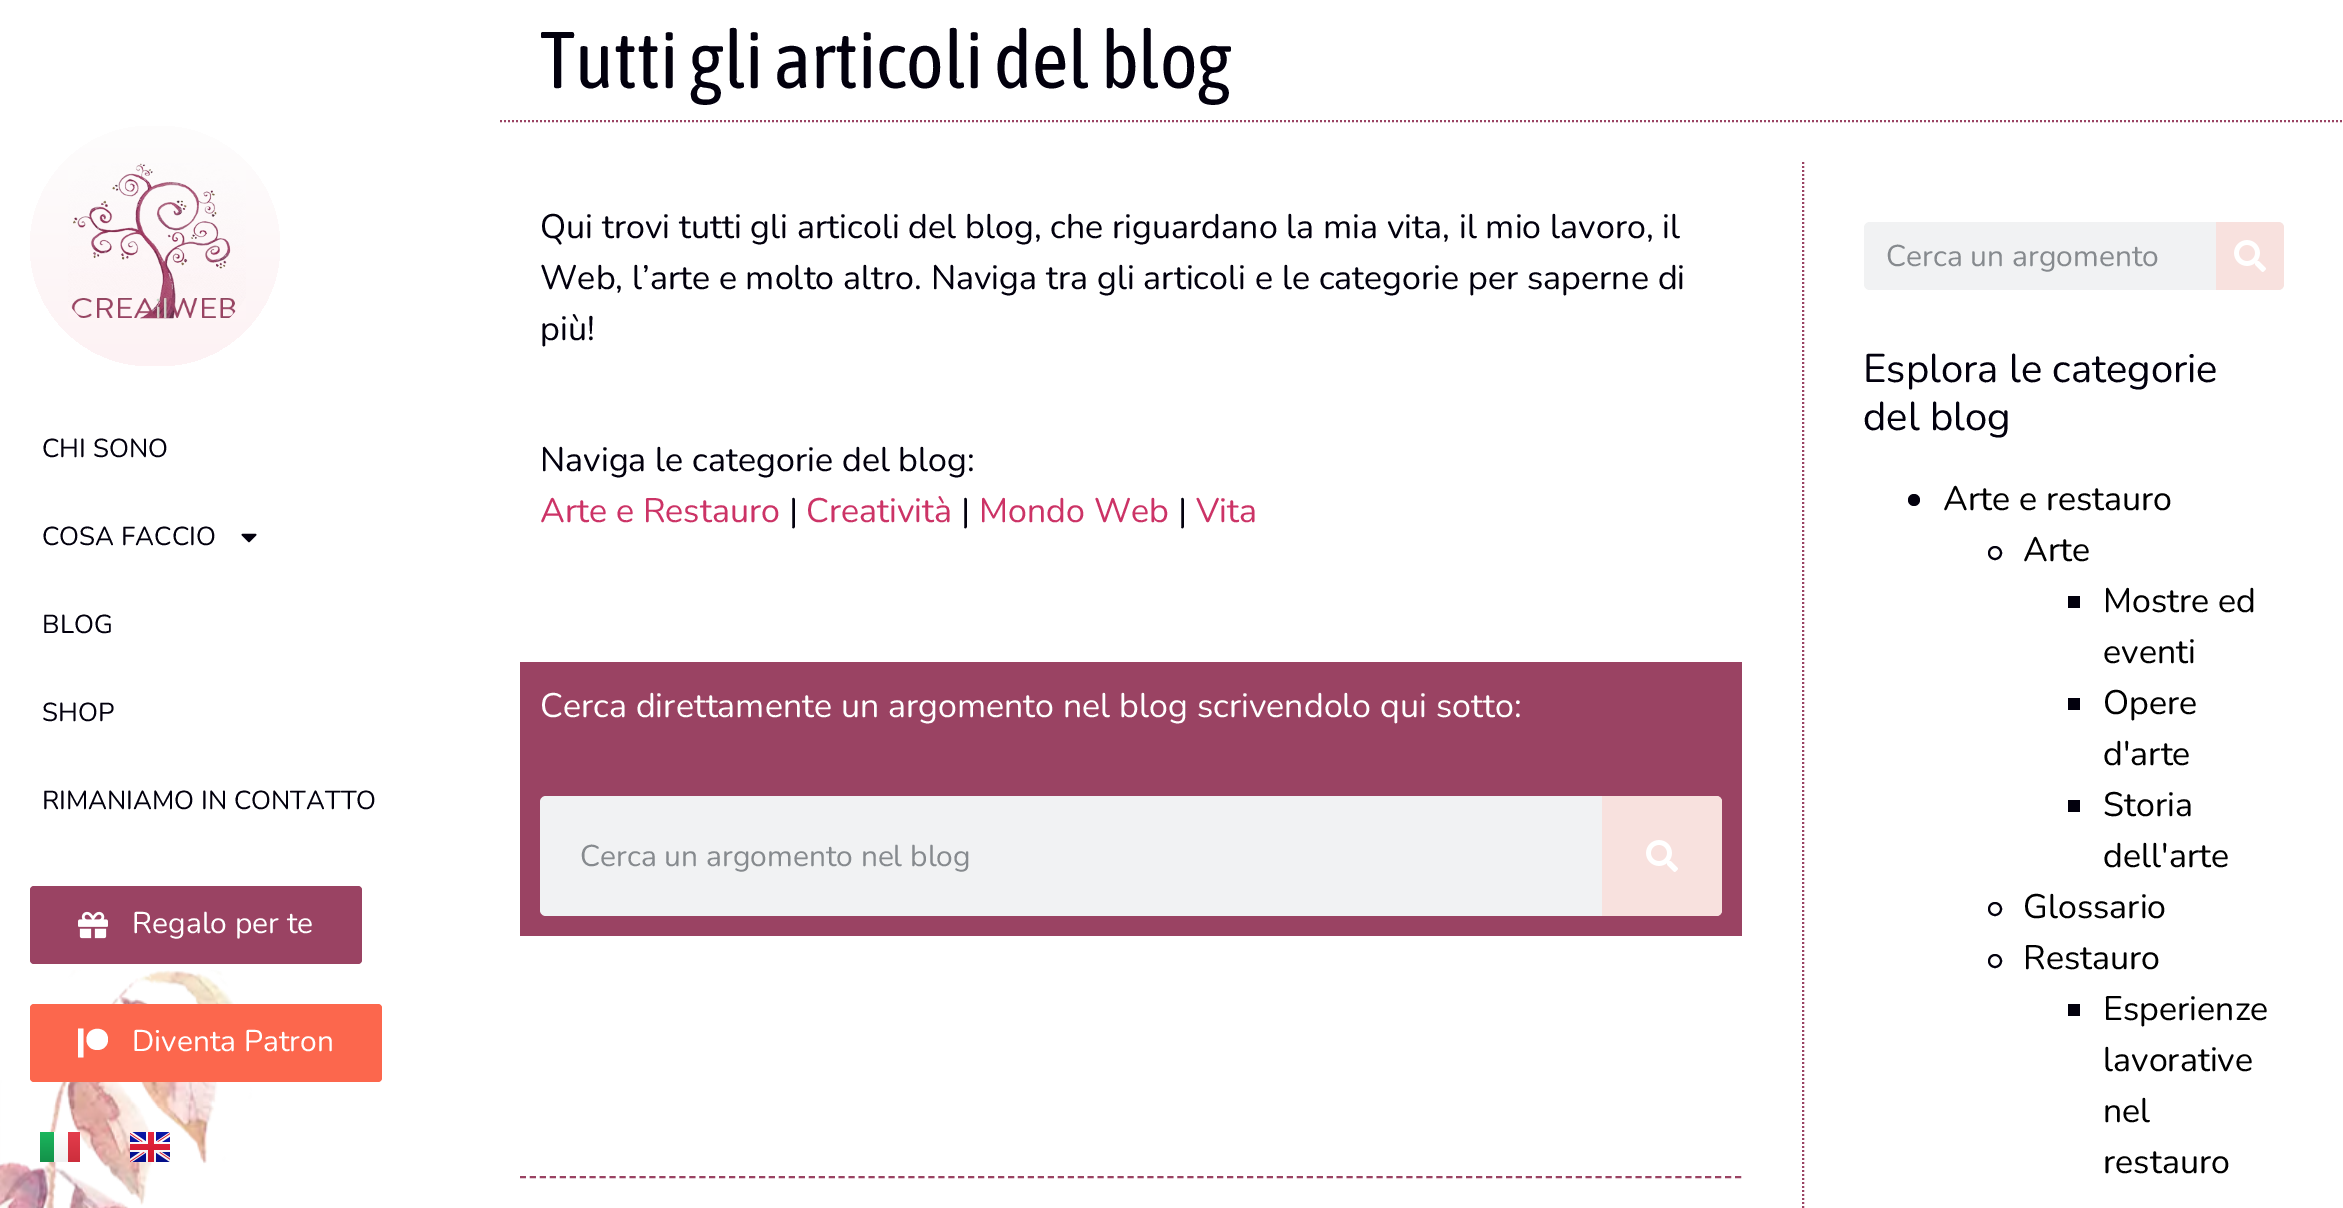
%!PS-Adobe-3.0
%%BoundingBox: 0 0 2343 1208
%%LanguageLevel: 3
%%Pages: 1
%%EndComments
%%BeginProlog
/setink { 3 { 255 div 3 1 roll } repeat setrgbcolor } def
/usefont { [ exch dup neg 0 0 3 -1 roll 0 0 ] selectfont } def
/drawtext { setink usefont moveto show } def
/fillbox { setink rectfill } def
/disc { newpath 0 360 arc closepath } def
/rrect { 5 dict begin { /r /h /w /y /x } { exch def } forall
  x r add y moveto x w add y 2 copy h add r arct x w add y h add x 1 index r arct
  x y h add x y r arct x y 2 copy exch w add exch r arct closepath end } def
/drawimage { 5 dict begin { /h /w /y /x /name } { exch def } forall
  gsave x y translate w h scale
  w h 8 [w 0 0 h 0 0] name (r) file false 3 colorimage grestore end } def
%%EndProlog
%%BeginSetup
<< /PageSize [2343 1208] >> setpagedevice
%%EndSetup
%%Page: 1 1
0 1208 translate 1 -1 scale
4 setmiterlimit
0 0 2343 1208 255 255 255 fillbox
(assets/img1.rgb) 0 970 252 238 drawimage
gsave 30 126 250 240 120 rrect clip newpath
<< /ShadingType 2 /ColorSpace /DeviceRGB /Coords [155 126 155 366] /Extend [true true] /Function << /FunctionType 2 /Domain [0 1] /C0 [0.992 0.992 0.992] /C1 [0.996 0.949 0.957] /N 1 >> >> shfill grestore
(assets/img2.rgb) 68 163 178 156 drawimage
(CHI SONO) 42 457 /Nunito-ExtraLight 26 2 0 13 drawtext
(COSA FACCIO) 42 545 /Nunito-ExtraLight 26 2 0 13 drawtext
(assets/img3.rgb) 241 533 16 10 drawimage
(BLOG) 42 633 /Nunito-ExtraLight 26 2 0 13 drawtext
(SHOP) 42 721 /Nunito-ExtraLight 26 2 0 13 drawtext
(RIMANIAMO IN CONTATTO) 42 809 /Nunito-ExtraLight 26 2 0 13 drawtext
154 67 99 setink
30 886 332 78 4 rrect fill
(assets/img4.rgb) 78 911 30 28 drawimage
(Regalo per te) 132 933 /Nunito-ExtraLight 30 255 255 255 drawtext
252 103 77 setink
30 1004 352 78 4 rrect fill
255 255 255 setink
108 1039.5 moveto 108 1053.5 86.5 1053.5 86.5 1039.5 curveto 86.5 1025.5 108 1025 108 1039.5 curveto closepath 78 1057.5 moveto 83.5 1057.5 lineto 83.5 1028.5 lineto 78 1028.5 lineto closepath fill
(Diventa Patron) 132 1051 /Nunito-ExtraLight 30 255 255 255 drawtext
gsave 40 1132 moveto 54 1132 lineto 54 1162 lineto 40 1162 lineto closepath clip newpath
<< /ShadingType 2 /ColorSpace /DeviceRGB /Coords [47 1132 47 1162] /Extend [true true] /Function << /FunctionType 2 /Domain [0 1] /C0 [0.106 0.714 0.365] /C1 [0.075 0.569 0.286] /N 1 >> >> shfill grestore
gsave 54 1132 moveto 68 1132 lineto 68 1162 lineto 54 1162 lineto closepath clip newpath
<< /ShadingType 2 /ColorSpace /DeviceRGB /Coords [61 1132 61 1162] /Extend [true true] /Function << /FunctionType 2 /Domain [0 1] /C0 [1 1 1] /C1 [0.941 0.941 0.941] /N 1 >> >> shfill grestore
gsave 68 1132 moveto 80 1132 lineto 80 1162 lineto 68 1162 lineto closepath clip newpath
<< /ShadingType 2 /ColorSpace /DeviceRGB /Coords [71 1132 71 1162] /Extend [true true] /Function << /FunctionType 2 /Domain [0 1] /C0 [0.894 0.239 0.298] /C1 [0.8 0.18 0.235] /N 1 >> >> shfill grestore
(assets/img5.rgb) 130 1132 40 30 drawimage
154 67 99 setink
2 setlinewidth
[2 2] 0 setdash
500 121 moveto 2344 121 lineto stroke
(Tutti gli articoli del blog) 540 88 /AsapCondensed-Regular 80 2 0 13 drawtext
(Qui trovi tutti gli articoli del blog, che riguardano la mia vita, il mio lavoro, il) 540 238 /Nunito-ExtraLight 34 2 0 13 drawtext
(Web, l’arte e molto altro. Naviga tra gli articoli e le categorie per saperne di) 540 289 /Nunito-ExtraLight 34 2 0 13 drawtext
(più!) 540 340 /Nunito-ExtraLight 34 2 0 13 drawtext
(Naviga le categorie del blog:) 540 471 /Nunito-ExtraLight 34 2 0 13 drawtext
(Arte e Restauro) 540 522 /Nunito-ExtraLight 34 204 51 102 drawtext
(|) 789 522 /Nunito-ExtraLight 34 2 0 13 drawtext
(Creatività) 806 522 /Nunito-ExtraLight 34 204 51 102 drawtext
(|) 961 522 /Nunito-ExtraLight 34 2 0 13 drawtext
(Mondo Web) 979 522 /Nunito-ExtraLight 34 204 51 102 drawtext
(|) 1178 522 /Nunito-ExtraLight 34 2 0 13 drawtext
(Vita) 1196 522 /Nunito-ExtraLight 34 204 51 102 drawtext
520 662 1222 274 154 67 99 fillbox
(Cerca direttamente un argomento nel blog scrivendolo qui sotto:) 540 717 /Nunito-ExtraLight 34 255 255 255 drawtext
241 242 243 setink
540 796 1182 120 6 rrect fill
(Cerca un argomento nel blog) 580 866 /Nunito-ExtraLight 30 134 138 142 drawtext
248 225 222 setink
1602 796 moveto 1716 796 lineto 1719.5 796 1722 798.5 1722 802 curveto 1722 910 lineto 1722 913.5 1719.5 916 1716 916 curveto 1602 916 lineto closepath fill
(assets/img6.rgb) 1646 840 32 32 drawimage
154 67 99 setink
[6 3.96] 0 setdash
520 1177 moveto 1742 1177 lineto stroke
[2 2] 0 setdash
1803 162 moveto 1803 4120 lineto stroke
241 242 243 setink
1864 222 420 68 6 rrect fill
(Cerca un argomento) 1886 266 /Nunito-ExtraLight 30 134 138 142 drawtext
248 225 222 setink
2216 222 moveto 2278 222 lineto 2281.5 222 2284 224.5 2284 228 curveto 2284 284 lineto 2284 287.5 2281.5 290 2278 290 curveto 2216 290 lineto closepath fill
(assets/img6.rgb) 2234 240 32 32 drawimage
(Esplora le categorie) 1863 382 /Nunito-ExtraLight 40 2 0 13 drawtext
(del blog) 1863 430 /Nunito-ExtraLight 40 2 0 13 drawtext
1914 500 6 disc fill
(Arte e restauro) 1943 510 /Nunito-ExtraLight 34 0 0 0 drawtext
2 0 13 setink
[] 0 setdash
1995 553 6 disc stroke
(Arte) 2023 561 /Nunito-ExtraLight 34 0 0 0 drawtext
2068 596 12 12 2 0 13 fillbox
(Mostre ed) 2103 612 /Nunito-ExtraLight 34 0 0 0 drawtext
(eventi) 2103 663 /Nunito-ExtraLight 34 0 0 0 drawtext
2068 698 12 12 2 0 13 fillbox
(Opere) 2103 714 /Nunito-ExtraLight 34 0 0 0 drawtext
(d'arte) 2103 765 /Nunito-ExtraLight 34 0 0 0 drawtext
2068 800 12 12 2 0 13 fillbox
(Storia) 2103 816 /Nunito-ExtraLight 34 0 0 0 drawtext
(dell'arte) 2103 867 /Nunito-ExtraLight 34 0 0 0 drawtext
2 0 13 setink
1995 909 6 disc stroke
(Glossario) 2023 918 /Nunito-ExtraLight 34 0 0 0 drawtext
2 0 13 setink
1995 961 6 disc stroke
(Restauro) 2023 969 /Nunito-ExtraLight 34 0 0 0 drawtext
2068 1004 12 12 2 0 13 fillbox
(Esperienze) 2103 1020 /Nunito-ExtraLight 34 0 0 0 drawtext
(lavorative) 2103 1071 /Nunito-ExtraLight 34 0 0 0 drawtext
(nel) 2103 1122 /Nunito-ExtraLight 34 0 0 0 drawtext
(restauro) 2103 1173 /Nunito-ExtraLight 34 0 0 0 drawtext
showpage
%%EOF
